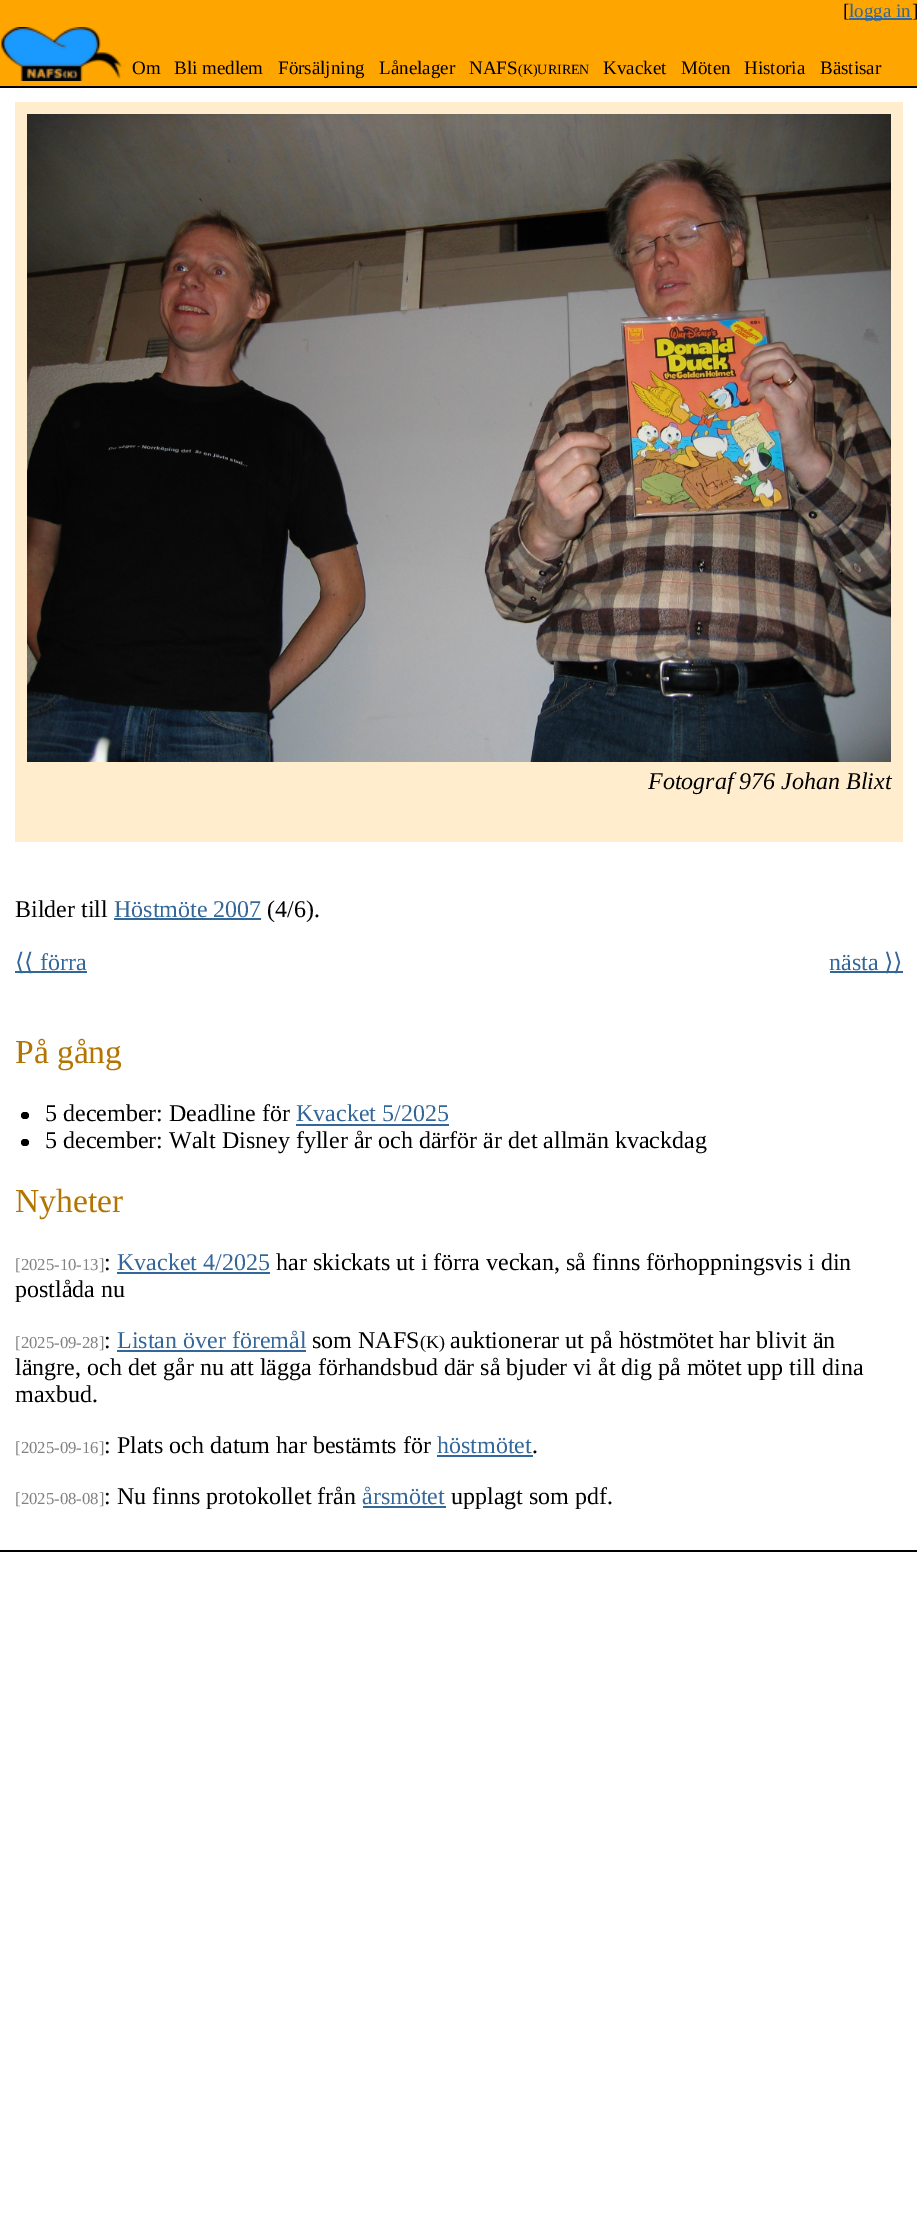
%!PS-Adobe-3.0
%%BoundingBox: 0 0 917 2226
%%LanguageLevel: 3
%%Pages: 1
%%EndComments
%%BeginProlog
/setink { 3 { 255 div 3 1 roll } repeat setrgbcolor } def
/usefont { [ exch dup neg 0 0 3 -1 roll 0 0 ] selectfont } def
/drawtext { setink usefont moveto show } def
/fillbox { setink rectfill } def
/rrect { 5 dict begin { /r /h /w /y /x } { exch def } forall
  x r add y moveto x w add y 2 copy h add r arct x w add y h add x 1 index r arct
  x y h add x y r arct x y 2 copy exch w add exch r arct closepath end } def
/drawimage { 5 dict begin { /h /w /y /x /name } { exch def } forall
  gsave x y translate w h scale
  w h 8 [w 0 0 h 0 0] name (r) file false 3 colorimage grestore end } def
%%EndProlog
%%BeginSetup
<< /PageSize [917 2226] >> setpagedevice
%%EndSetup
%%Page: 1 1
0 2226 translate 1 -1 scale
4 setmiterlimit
0 0 917 2226 255 255 255 fillbox
0 0 917 86 255 165 0 fillbox
0 86 917 2 0 0 0 fillbox
([) 843 17 /LiberationSerif-Regular 19 0 0 0 drawtext
849 18 63 2 51 102 153 fillbox
(logga in) 849 17 /LiberationSerif-Regular 19 51 102 153 drawtext
(]) 912 17 /LiberationSerif-Regular 19 0 0 0 drawtext
(assets/img1.rgb) 1 27 121 54 drawimage
(Om) 132 74 /LiberationSerif-Regular 19 0 0 0 drawtext
(Bli medlem) 174 74 /LiberationSerif-Regular 19 0 0 0 drawtext
(Försäljning) 278 74 /LiberationSerif-Regular 19 0 0 0 drawtext
(Lånelager) 379 74 /LiberationSerif-Regular 19 0 0 0 drawtext
(NAFS) 469 74 /LiberationSerif-Regular 19 0 0 0 drawtext
(\(K\)URIREN) 518 74 /LiberationSerif-Regular 14 0 0 0 drawtext
(Kvacket) 603 74 /LiberationSerif-Regular 19 0 0 0 drawtext
(Möten) 681 74 /LiberationSerif-Regular 19 0 0 0 drawtext
(Historia) 744 74 /LiberationSerif-Regular 19 0 0 0 drawtext
(Bästisar) 820 74 /LiberationSerif-Regular 19 0 0 0 drawtext
15 102 888 740 255 237 205 fillbox
(assets/img2.rgb) 27 114 864 648 drawimage
(Fotograf 976 Johan Blixt) 648 789 /LiberationSerif-Italic 24 0 0 0 drawtext
(Bilder till) 15 917 /LiberationSerif-Regular 24 0 0 0 drawtext
(Höstmöte 2007) 114 917 /LiberationSerif-Regular 24 51 102 153 drawtext
114 918 147 2 51 102 153 fillbox
(\(4/6\).) 267 917 /LiberationSerif-Regular 24 0 0 0 drawtext
15 971 72 2 51 102 153 fillbox
(⟨⟨) 15 970 /DejaVuSans-Regular 24 51 102 153 drawtext
(förra) 40 970 /LiberationSerif-Regular 24 51 102 153 drawtext
(nästa) 829 970 /LiberationSerif-Regular 24 51 102 153 drawtext
830 971 73 2 51 102 153 fillbox
(⟩⟩) 884 970 /DejaVuSans-Regular 24 51 102 153 drawtext
(På gång) 15 1063 /LiberationSerif-Regular 33.5 179 116 0 drawtext
0 0 0 setink
21 1112 8 7 3.5 rrect fill
(5 december: Deadline för) 45 1121 /LiberationSerif-Regular 24 0 0 0 drawtext
(Kvacket 5/2025) 296 1121 /LiberationSerif-Regular 24 51 102 153 drawtext
296 1124 153 2 51 102 153 fillbox
0 0 0 setink
21 1139 8 7 3.5 rrect fill
(5 december: Walt Disney fyller år och därför är det allmän kvackdag) 45 1148 /LiberationSerif-Regular 24 0 0 0 drawtext
(Nyheter) 15 1212 /LiberationSerif-Regular 33.5 179 116 0 drawtext
([2025-10-13]) 15 1270 /LiberationSerif-Regular 16.75 128 128 128 drawtext
(:) 104 1270 /LiberationSerif-Regular 24 0 0 0 drawtext
(Kvacket 4/2025) 117 1270 /LiberationSerif-Regular 24 51 102 153 drawtext
117 1272 153 2 51 102 153 fillbox
(har skickats ut i förra veckan, så finns förhoppningsvis i din) 276 1270 /LiberationSerif-Regular 24 0 0 0 drawtext
(postlåda nu) 15 1297 /LiberationSerif-Regular 24 0 0 0 drawtext
([2025-09-28]) 15 1348 /LiberationSerif-Regular 16.75 128 128 128 drawtext
(:) 104 1348 /LiberationSerif-Regular 24 0 0 0 drawtext
(Listan över föremål) 117 1348 /LiberationSerif-Regular 24 51 102 153 drawtext
117 1350 189 2 51 102 153 fillbox
(som NAFS) 312 1348 /LiberationSerif-Regular 24 0 0 0 drawtext
(\(K\)) 420 1348 /LiberationSerif-Regular 18 0 0 0 drawtext
(auktionerar ut på höstmötet har blivit än) 450 1348 /LiberationSerif-Regular 24 0 0 0 drawtext
(längre, och det går nu att lägga förhandsbud där så bjuder vi åt dig på mötet upp till dina) 15 1375 /LiberationSerif-Regular 24 0 0 0 drawtext
(maxbud.) 15 1402 /LiberationSerif-Regular 24 0 0 0 drawtext
([2025-09-16]) 15 1453 /LiberationSerif-Regular 16.75 128 128 128 drawtext
(: Plats och datum har bestämts för) 104 1453 /LiberationSerif-Regular 24 0 0 0 drawtext
(höstmötet) 437 1453 /LiberationSerif-Regular 24 51 102 153 drawtext
437 1455 96 2 51 102 153 fillbox
(.) 532 1453 /LiberationSerif-Regular 24 0 0 0 drawtext
([2025-08-08]) 15 1504 /LiberationSerif-Regular 16.75 128 128 128 drawtext
(: Nu finns protokollet från) 104 1504 /LiberationSerif-Regular 24 0 0 0 drawtext
(årsmötet) 362 1504 /LiberationSerif-Regular 24 51 102 153 drawtext
363 1506 83 2 51 102 153 fillbox
(upplagt som pdf.) 451 1504 /LiberationSerif-Regular 24 0 0 0 drawtext
0 1550 917 2 0 0 0 fillbox
showpage
%%EOF
